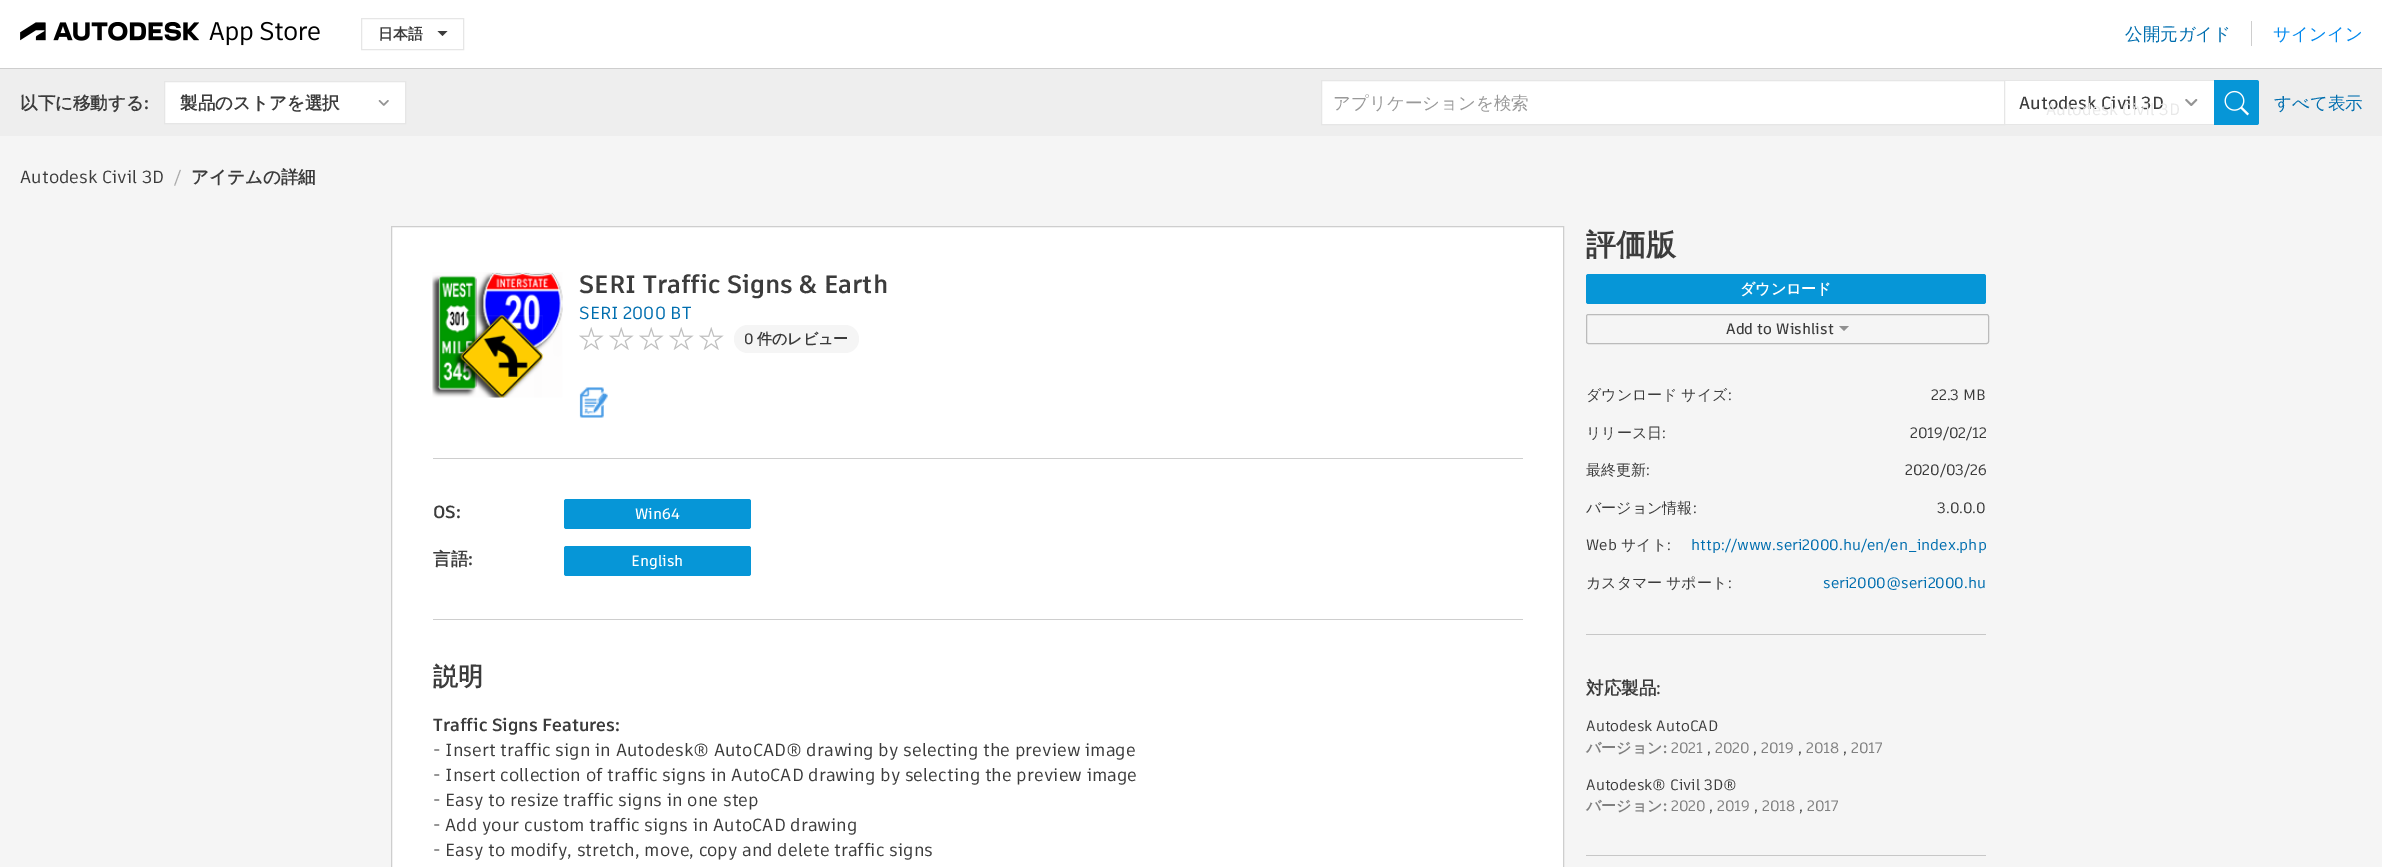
%!PS-Adobe-3.0
%%BoundingBox: 0 0 2382 867
%%LanguageLevel: 3
%%Pages: 1
%%EndComments
%%BeginProlog
/setink { 3 { 255 div 3 1 roll } repeat setrgbcolor } def
/usefont { [ exch dup neg 0 0 3 -1 roll 0 0 ] selectfont } def
/drawtext { setink usefont moveto show } def
/fillbox { setink rectfill } def
/rrect { 5 dict begin { /r /h /w /y /x } { exch def } forall
  x r add y moveto x w add y 2 copy h add r arct x w add y h add x 1 index r arct
  x y h add x y r arct x y 2 copy exch w add exch r arct closepath end } def
/drawimage { 5 dict begin { /h /w /y /x /name } { exch def } forall
  gsave x y translate w h scale
  w h 8 [w 0 0 h 0 0] name (r) file false 3 colorimage grestore end } def
%%EndProlog
%%BeginSetup
<< /PageSize [2382 867] >> setpagedevice
%%EndSetup
%%Page: 1 1
0 867 translate 1 -1 scale
4 setmiterlimit
0 0 2382 867 245 245 245 fillbox
0 0 2382 68 255 255 255 fillbox
0 68 2382 1 206 206 206 fillbox
(assets/img1.rgb) 20 21 300 25 drawimage
230 230 230 setink
361.5 18.5 102 31 rectstroke
(日本語) 378 39 /WenQuanYiZenHei-Bold 15 60 60 60 drawtext
437.5 31 moveto 447.5 31 lineto 442.5 36 lineto closepath fill
2251 21 1 25 206 206 206 fillbox
(公開元ガイド) 2125 40 /WenQuanYiZenHei-Medium 17.5 0 110 175 drawtext
(サインイン) 2273 40 /WenQuanYiZenHei-Medium 17.5 0 136 238 drawtext
0 69 2382 67 238 238 238 fillbox
(以下に移動する) 20 109 /WenQuanYiZenHei-Bold 17.5 60 60 60 drawtext
(:) 144 109 /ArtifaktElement-Bold 17.5 60 60 60 drawtext
255 255 255 setink
164.5 81.5 moveto 405.5 81.5 lineto 405.5 123.5 lineto 164.5 123.5 lineto closepath gsave fill grestore
230 230 230 setink
stroke
(製品のストアを選択) 180 109 /WenQuanYiZenHei-Bold 17.5 60 60 60 drawtext
(assets/img2.rgb) 378 100 11 6 drawimage
2005 80 254 45 255 255 255 fillbox
230 230 230 setink
2002 80 moveto 2214 80 lineto 2214 81 lineto 2004 81 lineto closepath fill
2214 125 moveto 2002 125 lineto 2004 124 lineto 2214 124 lineto closepath fill
255 255 255 setink
1321.5 80.5 moveto 2004.5 80.5 lineto 2004.5 124.5 lineto 1321.5 124.5 lineto closepath gsave fill grestore
230 230 230 setink
stroke
(アプリケーションを検索) 1333 109 /WenQuanYiZenHei-Medium 17.5 153 153 153 drawtext
(Autodesk Civil 3D) 2019 109 /ArtifaktElement-SemiBold 17.5 60 60 60 drawtext
(assets/img3.rgb) 2185 99 13 7 drawimage
(Autodesk Civil 3D) 2046 115 /ArtifaktElement-Medium 16.25 232 232 232 drawtext
6 150 215 setink
2214 80 moveto 2256.5 80 lineto 2258 80 2259 81 2259 82.5 curveto 2259 122.5 lineto 2259 124 2258 125 2256.5 125 curveto 2214 125 lineto closepath fill
(assets/img4.rgb) 2224 90 25 26 drawimage
(すべて表示) 2274 109 /WenQuanYiZenHei-Medium 17.5 0 110 175 drawtext
(Autodesk Civil 3D) 20 183 /ArtifaktElement-Medium 17.5 60 60 60 drawtext
(/) 174 183 /ArtifaktElement-Medium 17.5 171 171 171 drawtext
(アイテムの詳細) 191 183 /WenQuanYiZenHei-Bold 17.5 60 60 60 drawtext
255 255 255 setink
391.5 226.5 moveto 1563.5 226.5 lineto 1563.5 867.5 lineto 391.5 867.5 lineto closepath gsave fill grestore
206 206 206 setink
stroke
433 458 1090 1 206 206 206 fillbox
(assets/img5.rgb) 432 272 131 126 drawimage
(SERI Traffic Signs & Earth) 579 293 /ArtifaktElement-Bold 25 60 60 60 drawtext
(SERI 2000 BT) 579 319 /ArtifaktElement-Medium 17.5 0 110 175 drawtext
(assets/img6.rgb) 579 327 25 23 drawimage
(assets/img6.rgb) 609 327 25 23 drawimage
(assets/img6.rgb) 639 327 25 23 drawimage
(assets/img6.rgb) 669 327 25 23 drawimage
(assets/img6.rgb) 699 327 25 23 drawimage
245 245 245 setink
734 325 125 28 14 rrect fill
(0) 744 344 /ArtifaktElement-SemiBold 15 60 60 60 drawtext
(件のレビュー) 757 344 /WenQuanYiZenHei-Bold 15 60 60 60 drawtext
(assets/img7.rgb) 579 387 29 31 drawimage
433 619 1090 1 206 206 206 fillbox
(OS:) 433 518 /ArtifaktElement-Bold 17.5 60 60 60 drawtext
6 150 215 setink
564 499 187 30 2.5 rrect fill
(Win64) 635 519 /ArtifaktElement-SemiBold 15 255 255 255 drawtext
(言語) 433 565 /WenQuanYiZenHei-Bold 17.5 60 60 60 drawtext
(:) 468 565 /ArtifaktElement-Bold 17.5 60 60 60 drawtext
6 150 215 setink
564 546 187 30 2.5 rrect fill
(English) 631 566 /ArtifaktElement-SemiBold 15 255 255 255 drawtext
(説明) 433 685 /WenQuanYiZenHei-Bold 25 60 60 60 drawtext
(Traffic Signs Features:) 433 731 /ArtifaktElement-Bold 17.5 60 60 60 drawtext
(- Insert traffic sign in Autodesk® AutoCAD® drawing by selecting the preview image) 433 756 /ArtifaktElement-Medium 17.5 60 60 60 drawtext
(- Insert collection of traffic signs in AutoCAD drawing by selecting the preview image) 433 781 /ArtifaktElement-Medium 17.5 60 60 60 drawtext
(- Easy to resize traffic signs in one step) 433 806 /ArtifaktElement-Medium 17.5 60 60 60 drawtext
(- Add your custom traffic signs in AutoCAD drawing) 433 831 /ArtifaktElement-Medium 17.5 60 60 60 drawtext
(- Easy to modify, stretch, move, copy and delete traffic signs) 433 856 /ArtifaktElement-Medium 17.5 60 60 60 drawtext
1586 855 400 1 199 199 199 fillbox
(評価版) 1586 255 /WenQuanYiZenHei-Bold 30 60 60 60 drawtext
6 150 215 setink
1586 274 400 30 2.5 rrect fill
(ダウンロード) 1740 294 /WenQuanYiZenHei-Bold 15 255 255 255 drawtext
187 187 187 setink
1586.5 314.5 402 29 2 rrect stroke
(Add to Wishlist) 1726 334 /ArtifaktElement-SemiBold 15 60 60 60 drawtext
145 145 145 setink
1839 326 moveto 1849 326 lineto 1844 331 lineto closepath fill
/WenQuanYiZenHei-Medium 15 usefont
60 60 60 setink
1586 400 moveto -1 0 32 (ダウンロード サイズ) widthshow
(:) 1728 400 /ArtifaktElement-Medium 15 60 60 60 drawtext
(22.3 MB) 1931 400 /ArtifaktElement-Medium 15 60 60 60 drawtext
(リリース日) 1586 438 /WenQuanYiZenHei-Medium 15 60 60 60 drawtext
(:) 1662 438 /ArtifaktElement-Medium 15 60 60 60 drawtext
(2019/02/12) 1910 438 /ArtifaktElement-Medium 15 60 60 60 drawtext
(最終更新) 1586 475 /WenQuanYiZenHei-Medium 15 60 60 60 drawtext
(:) 1646 475 /ArtifaktElement-Medium 15 60 60 60 drawtext
(2020/03/26) 1905 475 /ArtifaktElement-Medium 15 60 60 60 drawtext
(バージョン情報) 1586 513 /WenQuanYiZenHei-Medium 15 60 60 60 drawtext
(:) 1693 513 /ArtifaktElement-Medium 15 60 60 60 drawtext
(3.0.0.0) 1937 513 /ArtifaktElement-Medium 15 60 60 60 drawtext
(Web) 1586 550 /ArtifaktElement-Medium 15 60 60 60 drawtext
(サイト) 1621 550 /WenQuanYiZenHei-Medium 15 60 60 60 drawtext
(:) 1667 550 /ArtifaktElement-Medium 15 60 60 60 drawtext
(http://www.seri2000.hu/en/en_index.php) 1691 550 /ArtifaktElement-Medium 15 0 110 175 drawtext
/WenQuanYiZenHei-Medium 15 usefont
60 60 60 setink
1586 588 moveto -1 0 32 (カスタマー サポート) widthshow
(:) 1728 588 /ArtifaktElement-Medium 15 60 60 60 drawtext
(seri2000@seri2000.hu) 1823 588 /ArtifaktElement-Medium 15 0 110 175 drawtext
1586 634 400 1 199 199 199 fillbox
(対応製品) 1586 694 /WenQuanYiZenHei-Bold 17.5 60 60 60 drawtext
(:) 1656 694 /ArtifaktElement-SemiBold 17.5 60 60 60 drawtext
(Autodesk AutoCAD) 1586 731 /ArtifaktElement-Medium 15 60 60 60 drawtext
(バージョン) 1586 753 /WenQuanYiZenHei-Bold 15 128 128 128 drawtext
(:) 1663 753 /ArtifaktElement-Bold 15 128 128 128 drawtext
(2021) 1671 753 /ArtifaktElement-Medium 15 128 128 128 drawtext
(,) 1707 753 /ArtifaktElement-Medium 15 60 60 60 drawtext
(2020) 1715 753 /ArtifaktElement-Medium 15 128 128 128 drawtext
(,) 1753 753 /ArtifaktElement-Medium 15 60 60 60 drawtext
(2019) 1761 753 /ArtifaktElement-Medium 15 128 128 128 drawtext
(,) 1798 753 /ArtifaktElement-Medium 15 60 60 60 drawtext
(2018) 1806 753 /ArtifaktElement-Medium 15 128 128 128 drawtext
(,) 1843 753 /ArtifaktElement-Medium 15 60 60 60 drawtext
(2017) 1851 753 /ArtifaktElement-Medium 15 128 128 128 drawtext
(Autodesk® Civil 3D®) 1586 790 /ArtifaktElement-Medium 15 60 60 60 drawtext
(バージョン) 1586 811 /WenQuanYiZenHei-Bold 15 128 128 128 drawtext
(:) 1663 811 /ArtifaktElement-Bold 15 128 128 128 drawtext
(2020) 1671 811 /ArtifaktElement-Medium 15 128 128 128 drawtext
(,) 1709 811 /ArtifaktElement-Medium 15 60 60 60 drawtext
(2019) 1717 811 /ArtifaktElement-Medium 15 128 128 128 drawtext
(,) 1754 811 /ArtifaktElement-Medium 15 60 60 60 drawtext
(2018) 1762 811 /ArtifaktElement-Medium 15 128 128 128 drawtext
(,) 1799 811 /ArtifaktElement-Medium 15 60 60 60 drawtext
(2017) 1807 811 /ArtifaktElement-Medium 15 128 128 128 drawtext
showpage
%%EOF
